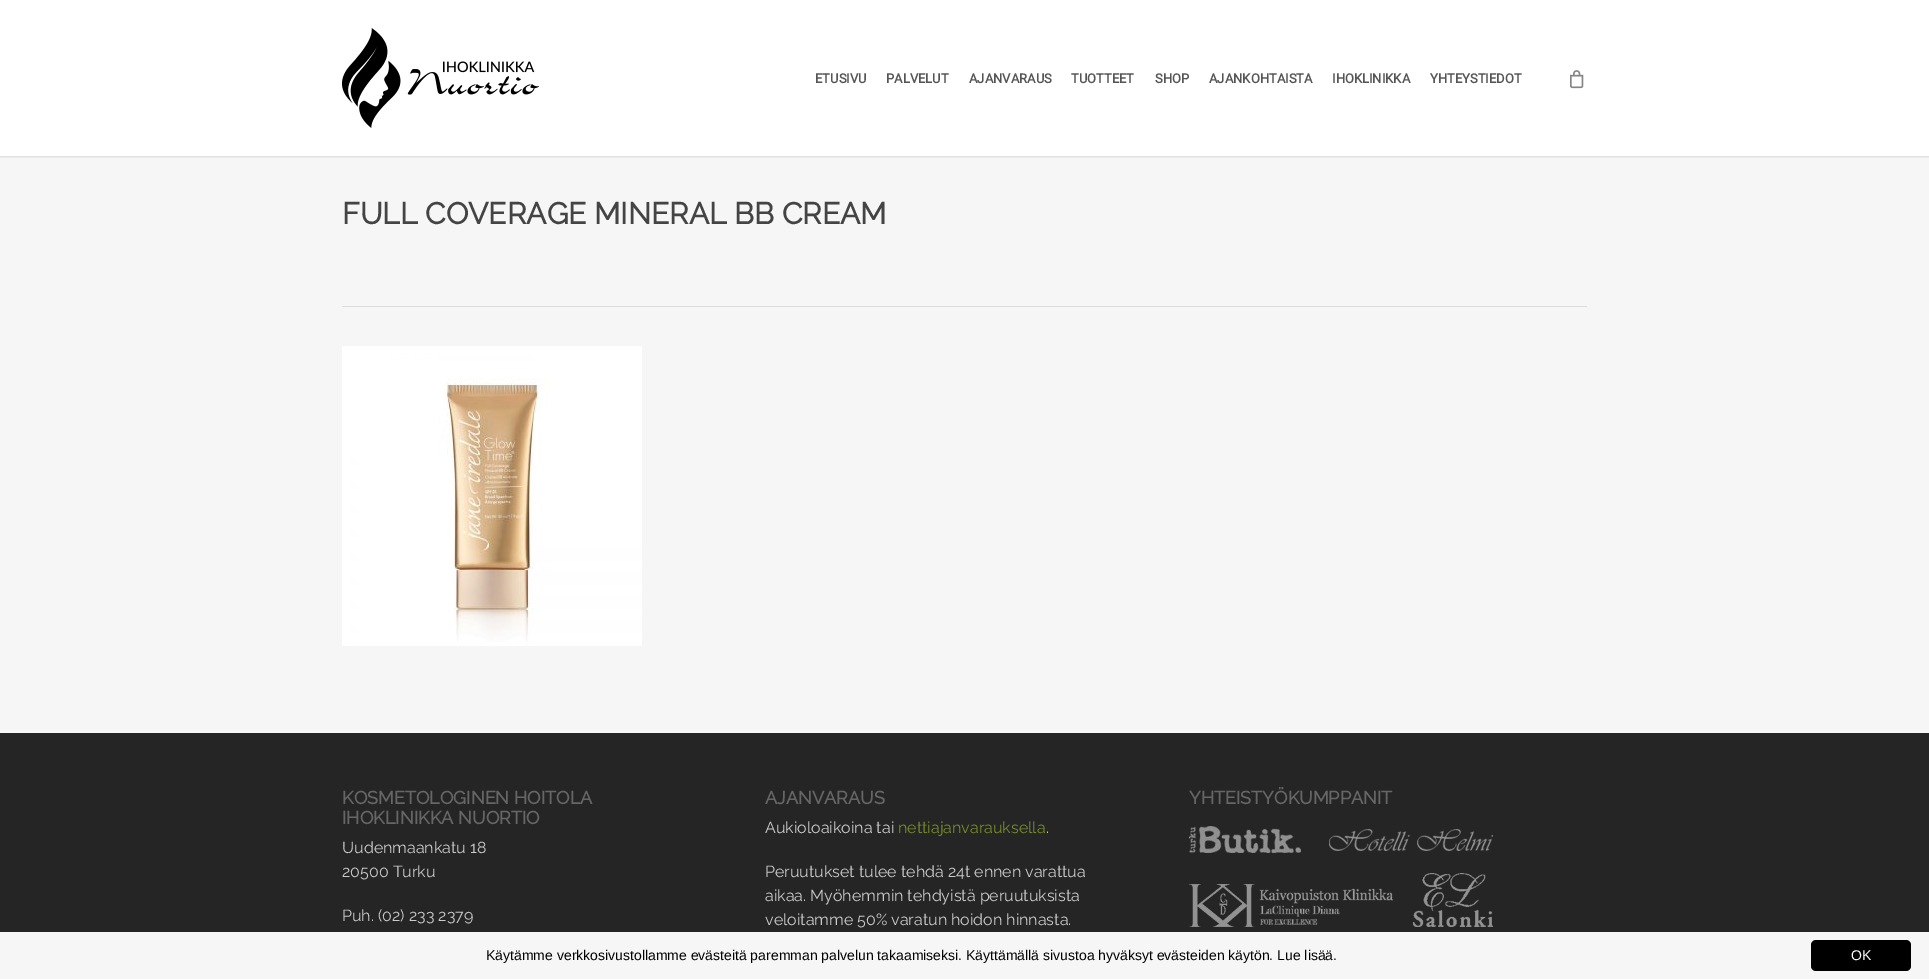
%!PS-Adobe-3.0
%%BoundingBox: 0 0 1929 979
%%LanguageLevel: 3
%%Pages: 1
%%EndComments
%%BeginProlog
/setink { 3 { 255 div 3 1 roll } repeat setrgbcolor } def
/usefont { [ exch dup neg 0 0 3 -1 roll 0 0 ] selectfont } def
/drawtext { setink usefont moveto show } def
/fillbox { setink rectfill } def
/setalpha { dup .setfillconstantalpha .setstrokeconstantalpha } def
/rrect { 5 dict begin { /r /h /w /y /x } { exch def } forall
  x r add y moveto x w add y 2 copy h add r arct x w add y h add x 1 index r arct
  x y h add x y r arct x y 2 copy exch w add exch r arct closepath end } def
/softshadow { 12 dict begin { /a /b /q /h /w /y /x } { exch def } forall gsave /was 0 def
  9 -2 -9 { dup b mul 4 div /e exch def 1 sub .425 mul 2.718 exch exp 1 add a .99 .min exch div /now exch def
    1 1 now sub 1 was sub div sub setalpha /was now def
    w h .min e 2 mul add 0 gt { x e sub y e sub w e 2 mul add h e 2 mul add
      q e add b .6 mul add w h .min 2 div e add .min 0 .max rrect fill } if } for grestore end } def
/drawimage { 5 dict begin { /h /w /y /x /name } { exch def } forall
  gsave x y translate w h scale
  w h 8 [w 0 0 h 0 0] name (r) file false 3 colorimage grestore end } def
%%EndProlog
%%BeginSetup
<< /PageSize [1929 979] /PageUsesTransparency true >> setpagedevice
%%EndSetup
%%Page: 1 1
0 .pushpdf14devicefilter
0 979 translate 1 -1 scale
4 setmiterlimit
0 0 1929 979 255 255 255 fillbox
0 156 1929 577 246 246 246 fillbox
gsave
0 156 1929 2 rectclip
0 0 0 setink
0 0 1929 156 0 1.5 0.22 softshadow
grestore
(assets/img1.rgb) 342 28 197 100 drawimage
(ETUSIVU) 815 83 /Roboto-Bold 13 85 85 85 drawtext
(PALVELUT) 886 83 /Roboto-Bold 13 85 85 85 drawtext
(AJANVARAUS) 969 83 /Roboto-Bold 13 85 85 85 drawtext
(TUOTTEET) 1071 83 /Roboto-Bold 13 85 85 85 drawtext
(SHOP) 1155 83 /Roboto-Bold 13 85 85 85 drawtext
(AJANKOHTAISTA) 1209 83 /Roboto-Bold 13 85 85 85 drawtext
(IHOKLINIKKA) 1332 83 /Roboto-Bold 13 85 85 85 drawtext
(YHTEYSTIEDOT) 1430 83 /Roboto-Bold 13 85 85 85 drawtext
(assets/img2.rgb) 1570 70 14 19 drawimage
342 306 1245 1 221 221 221 fillbox
(FULL COVERAGE MINERAL BB CREAM) 342 224 /Raleway-Bold 30 68 68 68 drawtext
(assets/img3.rgb) 342 346 300 300 drawimage
0 733 1929 199 37 37 37 fillbox
(KOSMETOLOGINEN HOITOLA) 342 804 /Raleway-Bold 18 102 102 102 drawtext
(IHOKLINIKKA NUORTIO) 342 824 /Raleway-Bold 18 102 102 102 drawtext
(Uudenmaankatu 18) 342 853 /Raleway-Thin 16 204 204 204 drawtext
(20500 Turku) 342 877 /Raleway-Thin 16 204 204 204 drawtext
(Puh. \(02\) 233 2379) 342 921 /Raleway-Thin 16 204 204 204 drawtext
(AJANVARAUS) 765 804 /Raleway-Bold 18 102 102 102 drawtext
(Aukioloaikoina tai) 765 833 /Raleway-Thin 16 204 204 204 drawtext
(nettiajanvarauksella) 898 833 /Raleway-Thin 16 118 141 40 drawtext
(.) 1046 833 /Raleway-Thin 16 204 204 204 drawtext
(Peruutukset tulee tehdä 24t ennen varattua) 765 877 /Raleway-Thin 16 204 204 204 drawtext
(aikaa. Myöhemmin tehdyistä peruutuksista) 765 901 /Raleway-Thin 16 204 204 204 drawtext
(veloitamme 50% varatun hoidon hinnasta.) 765 925 /Raleway-Thin 16 204 204 204 drawtext
(YHTEISTYÖKUMPPANIT) 1189 804 /Raleway-Bold 18 102 102 102 drawtext
(assets/img4.rgb) 1189 826 304 101 drawimage
0 932 1929 47 246 246 246 fillbox
(Käytämme verkkosivustollamme evästeitä paremman palvelun takaamiseksi. Käyttämällä sivustoa hyväksyt evästeiden käytön. Lue lisää.) 486 960 /LiberationSans-Regular 14 0 0 0 drawtext
1811 940 100 31 5 rrect fill
(OK) 1851 960 /LiberationSans-Regular 14 255 255 255 drawtext
.poppdf14devicefilter showpage
%%EOF
